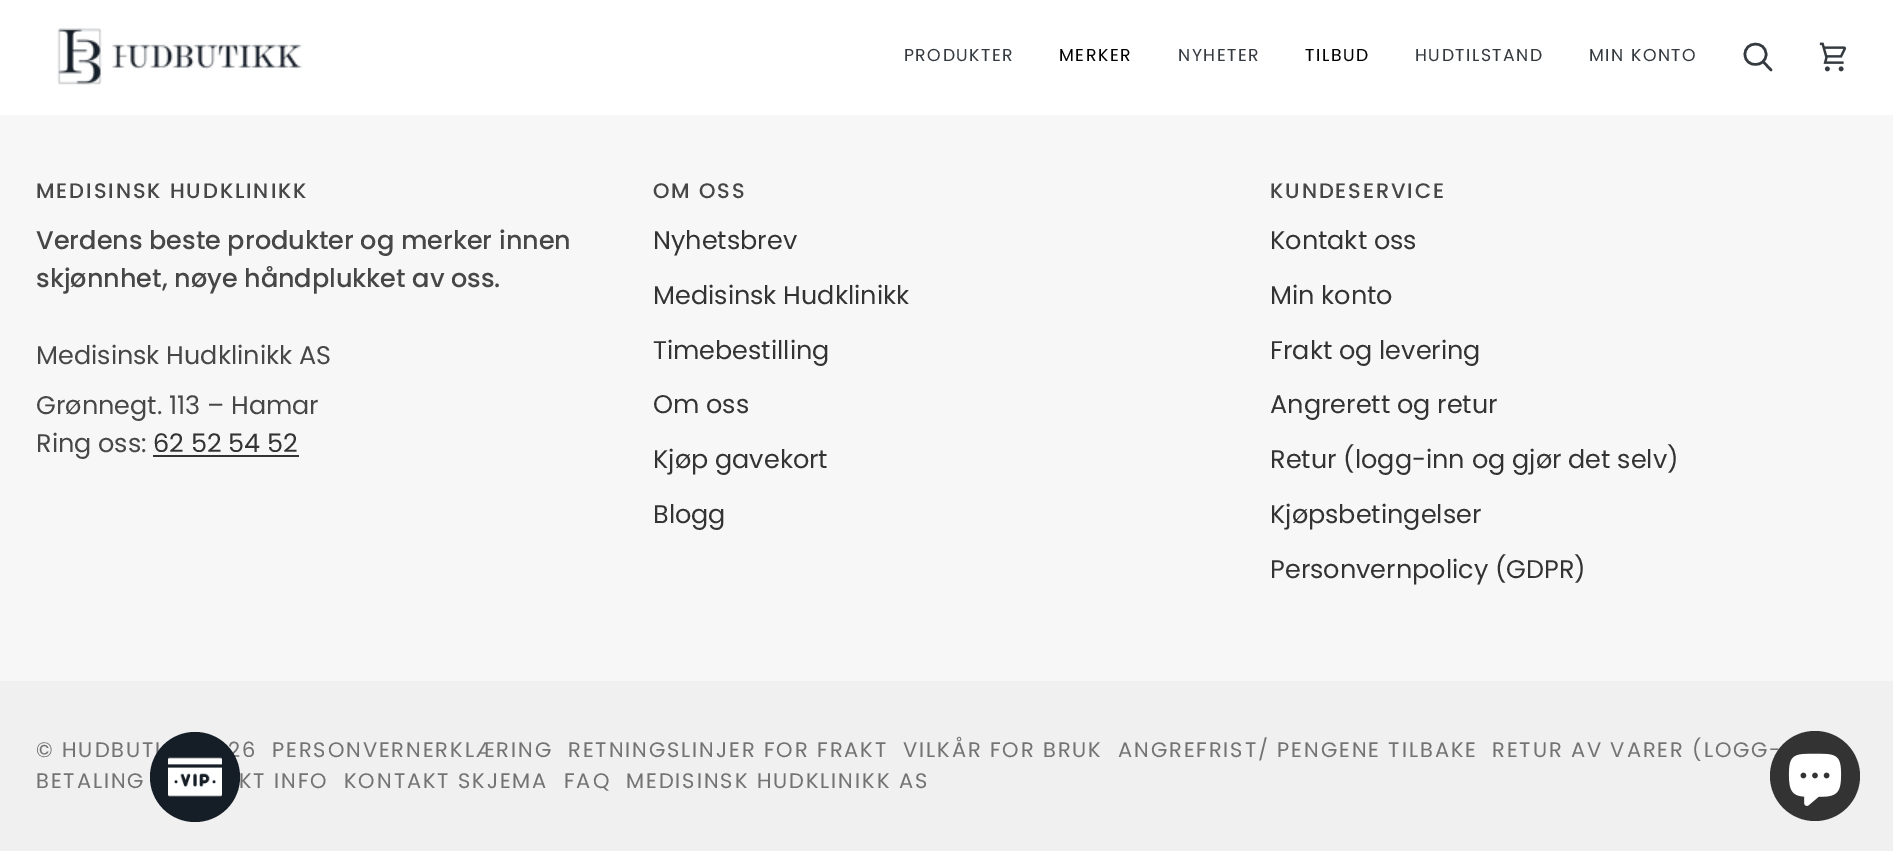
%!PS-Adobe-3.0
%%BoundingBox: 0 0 1893 851
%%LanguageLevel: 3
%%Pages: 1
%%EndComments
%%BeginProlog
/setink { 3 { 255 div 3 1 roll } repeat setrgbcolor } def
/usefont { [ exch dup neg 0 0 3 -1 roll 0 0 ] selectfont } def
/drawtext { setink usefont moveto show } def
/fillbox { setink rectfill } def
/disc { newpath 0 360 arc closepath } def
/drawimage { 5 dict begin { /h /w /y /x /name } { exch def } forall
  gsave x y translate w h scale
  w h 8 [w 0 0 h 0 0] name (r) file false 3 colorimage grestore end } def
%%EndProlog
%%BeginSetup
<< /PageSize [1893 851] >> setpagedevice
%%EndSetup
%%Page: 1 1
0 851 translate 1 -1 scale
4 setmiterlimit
0 0 1893 851 240 240 240 fillbox
0 0 1893 115 255 255 255 fillbox
(assets/img1.rgb) 57 28 245 57 drawimage
/Poppins-Regular 17.25 usefont
52 58 64 setink
904 61 moveto 1.5 0 (PRODUKTER) ashow
0 0 0 setink
1059 61 moveto 1.5 0 (MERKER) ashow
52 58 64 setink
1178 61 moveto 1.5 0 (NYHETER) ashow
0 0 0 setink
1305 61 moveto 1.5 0 (TILBUD) ashow
52 58 64 setink
1415 61 moveto 1.5 0 (HUDTILSTAND) ashow
1589 61 moveto 1.5 0 (MIN KONTO) ashow
2.5 setlinewidth
1 setlinecap
1 setlinejoin
1766 54.5 moveto 1766 67.5 1745.5 68 1745 55 curveto 1744 41 1766 40 1766 54.5 curveto closepath 1771 70 moveto 1763 61.5 lineto closepath stroke
(assets/img2.rgb) 1819 42 28 30 drawimage
0 115 1893 566 247 247 247 fillbox
/Poppins-Medium 21 usefont
71 71 71 setink
36 198 moveto 1.9 0 (MEDISINSK HUDKLINIKK) ashow
(Verdens beste produkter og merker innen) 36 249 /Poppins-Medium 25.5 71 71 71 drawtext
(skjønnhet, nøye håndplukket av oss.) 36 287 /Poppins-Medium 25.5 71 71 71 drawtext
(Medisinsk Hudklinikk AS) 36 364 /Poppins-Regular 25.5 71 71 71 drawtext
(Grønnegt. 113 – Hamar) 36 414 /Poppins-Regular 25.5 71 71 71 drawtext
(Ring oss:) 36 452 /Poppins-Regular 25.5 71 71 71 drawtext
(62 52 54 52) 153 452 /Poppins-Regular 25.5 51 51 51 drawtext
153 455 146 2 51 51 51 fillbox
/Poppins-Medium 21 usefont
71 71 71 setink
653 198 moveto 1.9 0 (OM OSS) ashow
(Nyhetsbrev) 653 249 /Poppins-Regular 25.5 51 51 51 drawtext
(Medisinsk Hudklinikk) 653 304 /Poppins-Regular 25.5 51 51 51 drawtext
(Timebestilling) 653 359 /Poppins-Regular 25.5 51 51 51 drawtext
(Om oss) 653 413 /Poppins-Regular 25.5 51 51 51 drawtext
(Kjøp gavekort) 653 468 /Poppins-Regular 25.5 51 51 51 drawtext
(Blogg) 653 523 /Poppins-Regular 25.5 51 51 51 drawtext
/Poppins-Medium 21 usefont
71 71 71 setink
1270 198 moveto 1.9 0 (KUNDESERVICE) ashow
(Kontakt oss) 1270 249 /Poppins-Regular 25.5 51 51 51 drawtext
(Min konto) 1270 304 /Poppins-Regular 25.5 51 51 51 drawtext
(Frakt og levering) 1270 359 /Poppins-Regular 25.5 51 51 51 drawtext
(Angrerett og retur) 1270 413 /Poppins-Regular 25.5 51 51 51 drawtext
(Retur \(logg-inn og gjør det selv\)) 1270 468 /Poppins-Regular 25.5 51 51 51 drawtext
(Kjøpsbetingelser) 1270 523 /Poppins-Regular 25.5 51 51 51 drawtext
(Personvernpolicy \(GDPR\)) 1270 578 /Poppins-Regular 25.5 51 51 51 drawtext
/Poppins-Regular 21 usefont
115 115 115 setink
36 757 moveto 1.9 0 (© HUDBUTI) ashow
228 757 moveto 1.9 0 (26) ashow
21 29 38 setink
195 777 45 disc fill
(assets/img3.rgb) 168 757 54 40 drawimage
115 115 115 setink
1492 757 moveto 1.9 0 (RETUR AV VARER \(LOGG-) ashow
51 51 51 setink
1815 776 45 disc fill
(assets/img4.rgb) 1788 753 54 53 drawimage
115 115 115 setink
272 757 moveto 1.9 0 (PERSONVERNERKLÆRING) ashow
568 757 moveto 1.9 0 (RETNINGSLINJER FOR FRAKT) ashow
903 757 moveto 1.9 0 (VILKÅR FOR BRUK) ashow
1118 757 moveto 1.9 0 (ANGREFRIST/ PENGENE TILBAKE) ashow
36 788 moveto 1.9 0 (BETALING) ashow
239 788 moveto 1.9 0 (KT INFO) ashow
344 788 moveto 1.9 0 (KONTAKT SKJEMA) ashow
564 788 moveto 1.9 0 (FAQ) ashow
626 788 moveto 1.9 0 (MEDISINSK HUDKLINIKK AS) ashow
showpage
%%EOF
